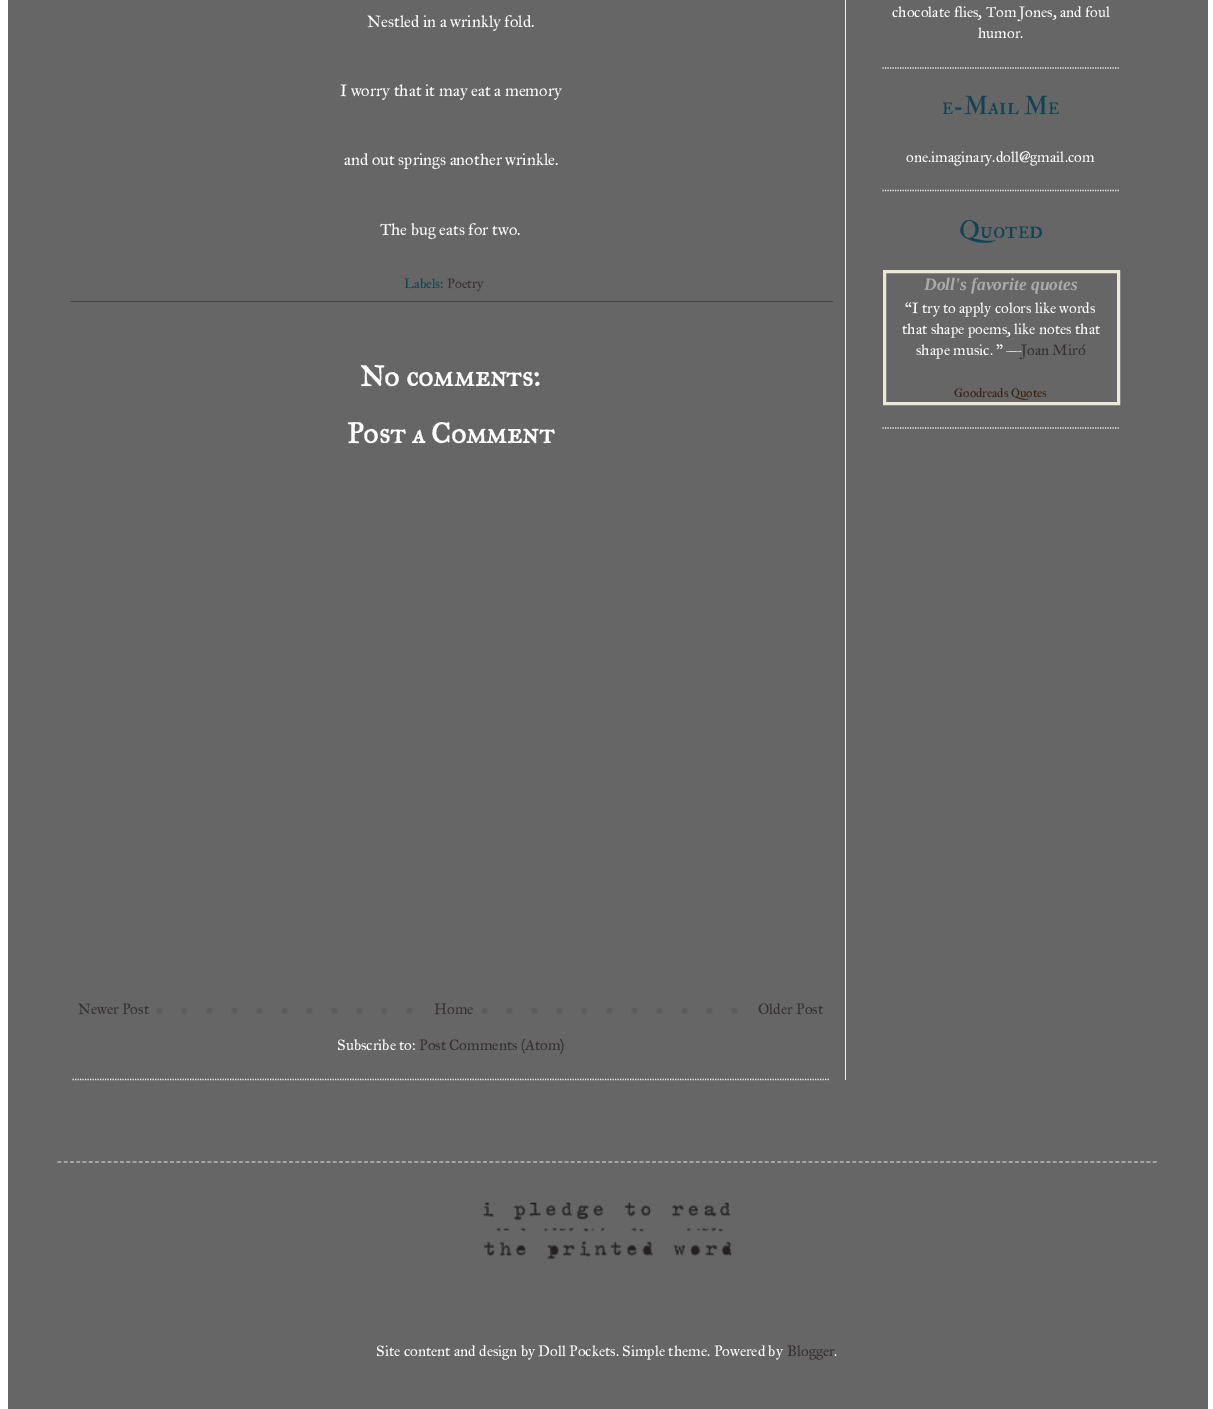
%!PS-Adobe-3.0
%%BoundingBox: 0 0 1213 1409
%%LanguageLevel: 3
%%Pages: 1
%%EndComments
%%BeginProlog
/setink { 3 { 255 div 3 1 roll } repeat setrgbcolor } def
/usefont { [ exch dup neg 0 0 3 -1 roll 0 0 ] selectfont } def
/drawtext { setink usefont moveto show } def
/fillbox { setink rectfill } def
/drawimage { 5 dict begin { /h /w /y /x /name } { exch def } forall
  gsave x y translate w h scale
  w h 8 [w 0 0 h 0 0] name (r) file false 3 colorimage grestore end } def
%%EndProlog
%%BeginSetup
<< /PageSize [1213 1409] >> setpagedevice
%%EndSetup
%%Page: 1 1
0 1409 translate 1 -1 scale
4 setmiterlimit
0 0 1213 1409 255 255 255 fillbox
8 0 1200 1409 102 102 102 fillbox
845 0 1 1080 238 238 238 fillbox
1.2 setlinewidth
[1.25 1.25] 0 setdash
72.5 1079.5 moveto 830 1079.5 lineto stroke
(Nestled in a wrinkly fold.) 367 27 /IMFELLGreatPrimer-Regular 16.5 255 255 255 drawtext
(I worry that it may eat a memory) 340 96 /IMFELLGreatPrimer-Regular 16.5 255 255 255 drawtext
(and out springs another wrinkle.) 344 165 /IMFELLGreatPrimer-Regular 16.5 255 255 255 drawtext
(The bug eats for two.) 380 235 /IMFELLGreatPrimer-Regular 16.5 255 255 255 drawtext
70 301 763 1 68 68 68 fillbox
(Labels:) 404 288 /IMFELLGreatPrimer-Regular 13.5 15 69 82 drawtext
(Poetry) 447 288 /IMFELLGreatPrimer-Regular 13.5 53 48 48 drawtext
(No comments:) 360 386 /IMFELLGreatPrimerSC-Bold 28.75 255 255 255 drawtext
(Post a Comment) 347 443 /IMFELLGreatPrimerSC-Bold 28.75 255 255 255 drawtext
(assets/img1.rgb) 156 1008 582 6 drawimage
(Newer Post) 78 1014 /IMFELLGreatPrimer-Regular 15 53 48 48 drawtext
431 1008 32 6 102 102 102 fillbox
(Home) 434 1014 /IMFELLGreatPrimer-Regular 15 53 48 48 drawtext
(Older Post) 758 1014 /IMFELLGreatPrimer-Regular 15 53 48 48 drawtext
(Subscribe to:) 337 1050 /IMFELLGreatPrimer-Regular 15 255 255 255 drawtext
(Post Comments \(Atom\)) 419 1050 /IMFELLGreatPrimer-Regular 15 53 48 48 drawtext
238 238 238 setink
882.5 68 moveto 1120 68 lineto stroke
(chocolate flies, Tom Jones, and foul) 892 17 /IMFELLGreatPrimer-Regular 15 255 255 255 drawtext
(humor.) 978 38 /IMFELLGreatPrimer-Regular 15 255 255 255 drawtext
238 238 238 setink
882.5 190.5 moveto 1120 190.5 lineto stroke
(e-Mail Me) 942 114 /IMFELLDoublePicaSC-Regular 25 15 69 82 drawtext
(one.imaginary.doll@gmail.com) 906 162 /IMFELLGreatPrimer-Regular 15 255 255 255 drawtext
238 238 238 setink
882.5 428 moveto 1120 428 lineto stroke
(Quoted) 959 238 /IMFELLDoublePicaSC-Regular 25 15 69 82 drawtext
235 232 213 setink
3 setlinewidth
[] 0 setdash
884.5 271.5 234 132 rectstroke
(Doll's favorite quotes) 924 290 /LiberationSerif-BoldItalic 17.5 170 170 170 drawtext
(“I try to apply colors like words) 905 313 /IMFELLGreatPrimer-Regular 15 255 255 255 drawtext
(that shape poems, like notes that) 902 334 /IMFELLGreatPrimer-Regular 15 255 255 255 drawtext
(shape music. ” —) 916 355 /IMFELLGreatPrimer-Regular 15 255 255 255 drawtext
(Joan Miró) 1021 355 /IMFELLGreatPrimer-Regular 15 53 48 48 drawtext
(Goodreads Quotes) 954 397 /IMFELLGreatPrimer-Regular 12.5 56 33 16 drawtext
187 187 187 setink
1.2 setlinewidth
[3.75 2.51] 0 setdash
57.5 1162 moveto 1157.5 1162 lineto stroke
(assets/img2.rgb) 483 1202 249 57 drawimage
(Site content and design by Doll Pockets. Simple theme. Powered by) 376 1356 /IMFELLGreatPrimer-Regular 15 255 255 255 drawtext
(Blogger) 787 1356 /IMFELLGreatPrimer-Regular 15 53 48 48 drawtext
(.) 834 1356 /IMFELLGreatPrimer-Regular 15 255 255 255 drawtext
showpage
%%EOF
